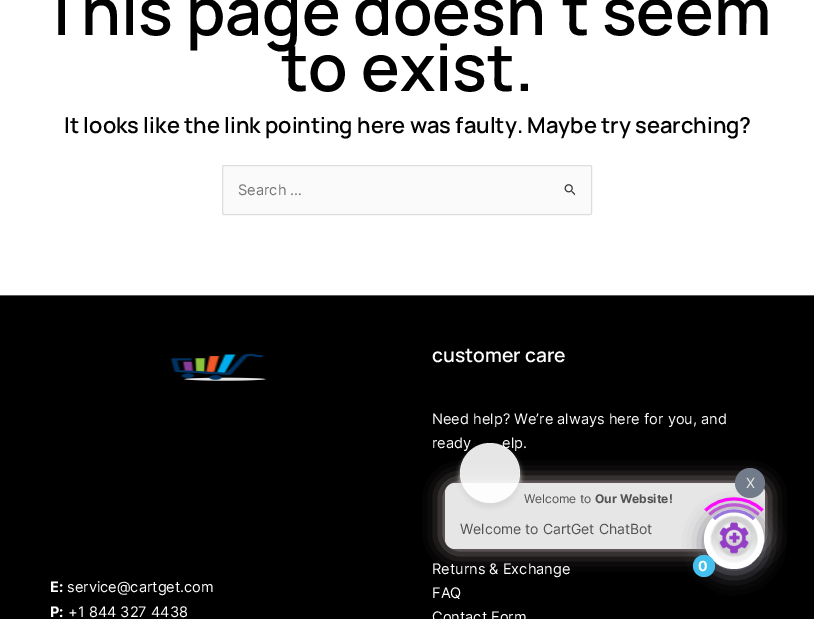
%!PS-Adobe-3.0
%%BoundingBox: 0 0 814 619
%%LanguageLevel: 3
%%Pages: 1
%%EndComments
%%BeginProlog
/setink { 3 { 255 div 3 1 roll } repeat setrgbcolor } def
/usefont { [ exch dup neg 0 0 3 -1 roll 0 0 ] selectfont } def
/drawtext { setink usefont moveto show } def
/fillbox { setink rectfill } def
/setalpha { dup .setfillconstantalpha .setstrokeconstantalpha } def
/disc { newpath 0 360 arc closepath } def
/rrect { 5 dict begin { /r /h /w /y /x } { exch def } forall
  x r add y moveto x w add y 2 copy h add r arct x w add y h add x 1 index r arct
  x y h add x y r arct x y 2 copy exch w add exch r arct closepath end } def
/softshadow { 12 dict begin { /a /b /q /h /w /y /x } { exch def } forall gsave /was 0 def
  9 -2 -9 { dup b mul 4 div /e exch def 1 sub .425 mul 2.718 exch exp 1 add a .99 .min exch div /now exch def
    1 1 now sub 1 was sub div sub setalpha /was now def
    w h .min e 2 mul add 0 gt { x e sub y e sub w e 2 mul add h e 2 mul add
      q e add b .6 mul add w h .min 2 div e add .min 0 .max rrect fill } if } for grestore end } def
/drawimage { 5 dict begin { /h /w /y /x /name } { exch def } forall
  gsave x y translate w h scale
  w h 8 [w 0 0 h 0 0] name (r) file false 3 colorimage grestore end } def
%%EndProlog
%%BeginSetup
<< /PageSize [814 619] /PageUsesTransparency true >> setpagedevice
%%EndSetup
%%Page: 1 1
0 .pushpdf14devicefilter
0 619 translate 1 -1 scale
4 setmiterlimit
0 0 814 619 255 255 255 fillbox
/Manrope-ExtraLight 65 usefont
0 0 0 setink
42 35 moveto -0.5 0 32 (This page doesn't seem) widthshow
(to exist.) 281 91 /Manrope-ExtraLight 65 0 0 0 drawtext
(It looks like the link pointing here was faulty. Maybe try searching?) 64 133 /Manrope-ExtraLight 21.9 0 0 0 drawtext
250 250 250 setink
222.5 165.5 369 49 1.5 rrect gsave fill grestore
221 221 221 setink
stroke
(Search …) 238 195 /Inter-Regular 14.6 117 117 117 drawtext
(assets/img1.rgb) 564 184 11 12 drawimage
0 296 814 323 0 0 0 fillbox
0 295 814 1 91 91 91 fillbox
(assets/img2.rgb) 171 353 96 28 drawimage
(customer care) 432 362 /Manrope-ExtraLight 19.25 254 254 254 drawtext
(Need help? We’re always here for you, and) 432 424 /Inter-Regular 14.6 248 248 248 drawtext
(ready) 432 448 /Inter-Regular 14.6 248 248 248 drawtext
(elp.) 502 448 /Inter-Regular 14.6 248 248 248 drawtext
(E:) 50 592 /Inter-Bold 14.6 254 254 254 drawtext
(service@cartget.com) 67 592 /Inter-Regular 14.6 254 254 254 drawtext
(P:) 50 617 /Inter-Bold 14.6 254 254 254 drawtext
(+1 844 327 4438) 68 617 /Inter-Regular 14.6 254 254 254 drawtext
(Returns & Exchange) 432 574 /Inter-Regular 14.6 254 254 254 drawtext
(FAQ) 432 598 /Inter-Regular 14.6 254 254 254 drawtext
(Contact Form) 432 622 /Inter-Regular 14.6 254 254 254 drawtext
206 189 189 setink
445 483 320 66 10 10 0.9 softshadow
230 230 230 setink
445 483 320 66 10 rrect fill
113 123 138 setink
750 483 15 disc fill
(X) 746 488 /Inter-Regular 14 230 230 230 drawtext
gsave
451 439 moveto 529 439 lineto 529 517 lineto 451 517 lineto closepath 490 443 moveto 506.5 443 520 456.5 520 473 curveto 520 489.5 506.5 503 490 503 curveto 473.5 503 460 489.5 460 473 curveto 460 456.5 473.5 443 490 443 curveto closepath eoclip newpath
213 213 213 setink
460 448 60 60 30 2.5 0.9 softshadow
grestore
0.9 setalpha
255 255 255 setink
490 473 30 disc fill
1 setalpha
(Welcome to) 524 503 /Inter-Regular 12 82 82 82 drawtext
(Our Website!) 595 503 /Inter-Bold 12 82 82 82 drawtext
(Welcome to CartGet ChatBot) 460 534 /Inter-Regular 14 82 82 82 drawtext
118 117 128 setink
704 513 60 60 30 10 1 softshadow
255 255 255 setink
734 539 30 disc fill
(assets/img3.rgb) 710 515 48 48 drawimage
0.95 setalpha
147 112 219 setink
3 setlinewidth
714 519 moveto 725 508 743 508 754 519 curveto stroke
186 85 211 setink
709.5 514.5 moveto 723 501.5 745 501.5 758.5 514.5 curveto stroke
255 0 255 setink
705.5 510.5 moveto 721 495 747 495 762.5 510.5 curveto stroke
1 setalpha
67 192 237 setink
704 566 11 disc fill
/Inter-Bold 14 usefont
254 254 254 setink
698 571 moveto 2 0 (0) ashow
.poppdf14devicefilter showpage
%%EOF
